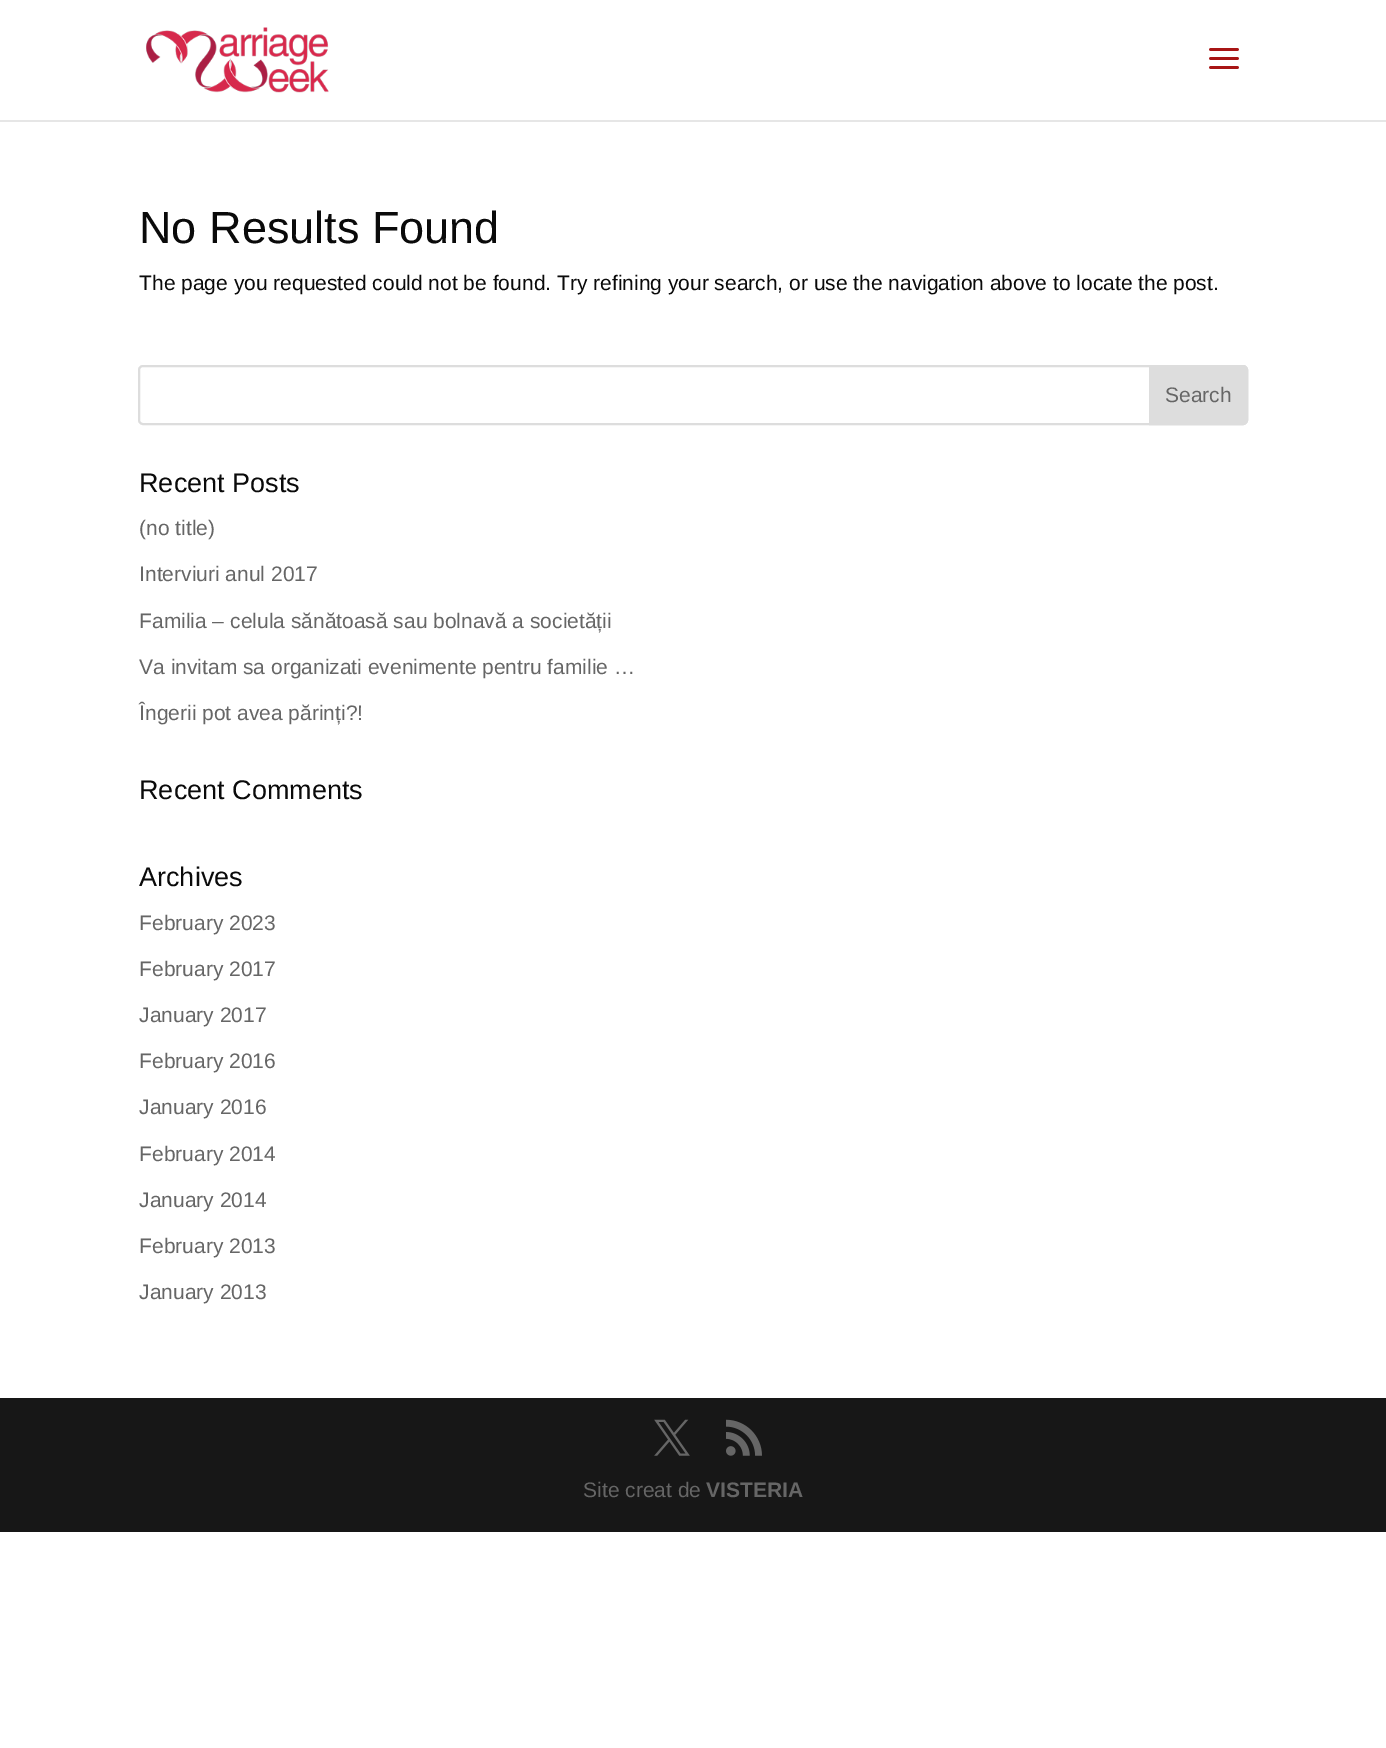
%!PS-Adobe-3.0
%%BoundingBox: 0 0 1386 1748
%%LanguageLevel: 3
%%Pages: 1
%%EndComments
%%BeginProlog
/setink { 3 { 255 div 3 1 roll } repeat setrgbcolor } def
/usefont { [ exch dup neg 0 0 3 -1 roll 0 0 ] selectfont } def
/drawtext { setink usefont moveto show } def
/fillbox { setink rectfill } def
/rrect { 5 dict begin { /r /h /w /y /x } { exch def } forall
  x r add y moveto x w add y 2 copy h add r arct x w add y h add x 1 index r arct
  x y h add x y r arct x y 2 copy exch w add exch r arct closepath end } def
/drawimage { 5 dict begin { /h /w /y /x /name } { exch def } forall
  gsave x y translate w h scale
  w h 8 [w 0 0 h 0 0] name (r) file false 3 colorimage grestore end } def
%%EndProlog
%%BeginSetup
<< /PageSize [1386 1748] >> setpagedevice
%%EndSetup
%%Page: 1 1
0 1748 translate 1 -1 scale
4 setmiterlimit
0 0 1386 1748 255 255 255 fillbox
0 120 1386 2 230 230 230 fillbox
(assets/img1.rgb) 146 27 183 66 drawimage
(assets/img2.rgb) 1209 48 30 21 drawimage
(No Results Found) 139 243 /LiberationSans-Regular 45 10 10 10 drawtext
(The page you requested could not be found. Try refining your search, or use the navigation above to locate the post.) 139 290 /LiberationSans-Regular 21 10 10 10 drawtext
221 221 221 setink
2 setlinewidth
139 366 1108 58 4 rrect stroke
1150 366 moveto 1243 366 lineto 1245 366 1247 368 1247 370 curveto 1247 420 lineto 1247 422 1245 424 1243 424 curveto 1150 424 lineto closepath gsave fill grestore
stroke
(Search) 1165 402 /LiberationSans-Regular 21 102 102 102 drawtext
(Recent Posts) 139 492 /LiberationSans-Regular 27 10 10 10 drawtext
(\(no title\)) 139 535 /LiberationSans-Regular 21 102 102 102 drawtext
(Interviuri anul 2017) 139 581 /LiberationSans-Regular 21 102 102 102 drawtext
(Familia – celula sănătoasă sau bolnavă a societății) 139 628 /LiberationSans-Regular 21 102 102 102 drawtext
(Va invitam sa organizati evenimente pentru familie …) 139 674 /LiberationSans-Regular 21 102 102 102 drawtext
(Îngerii pot avea părinți?!) 139 720 /LiberationSans-Regular 21 102 102 102 drawtext
(Recent Comments) 139 799 /LiberationSans-Regular 27 10 10 10 drawtext
(Archives) 139 886 /LiberationSans-Regular 27 10 10 10 drawtext
(February 2023) 139 930 /LiberationSans-Regular 21 102 102 102 drawtext
(February 2017) 139 976 /LiberationSans-Regular 21 102 102 102 drawtext
(January 2017) 139 1022 /LiberationSans-Regular 21 102 102 102 drawtext
(February 2016) 139 1068 /LiberationSans-Regular 21 102 102 102 drawtext
(January 2016) 139 1114 /LiberationSans-Regular 21 102 102 102 drawtext
(February 2014) 139 1161 /LiberationSans-Regular 21 102 102 102 drawtext
(January 2014) 139 1207 /LiberationSans-Regular 21 102 102 102 drawtext
(February 2013) 139 1253 /LiberationSans-Regular 21 102 102 102 drawtext
(January 2013) 139 1299 /LiberationSans-Regular 21 102 102 102 drawtext
0 1398 1386 134 23 23 23 fillbox
(assets/img3.rgb) 654 1419 36 37 drawimage
(assets/img4.rgb) 726 1419 36 37 drawimage
(Site creat de) 583 1497 /LiberationSans-Regular 21 102 102 102 drawtext
(VISTERIA) 706 1497 /LiberationSans-Bold 21 102 102 102 drawtext
showpage
%%EOF
